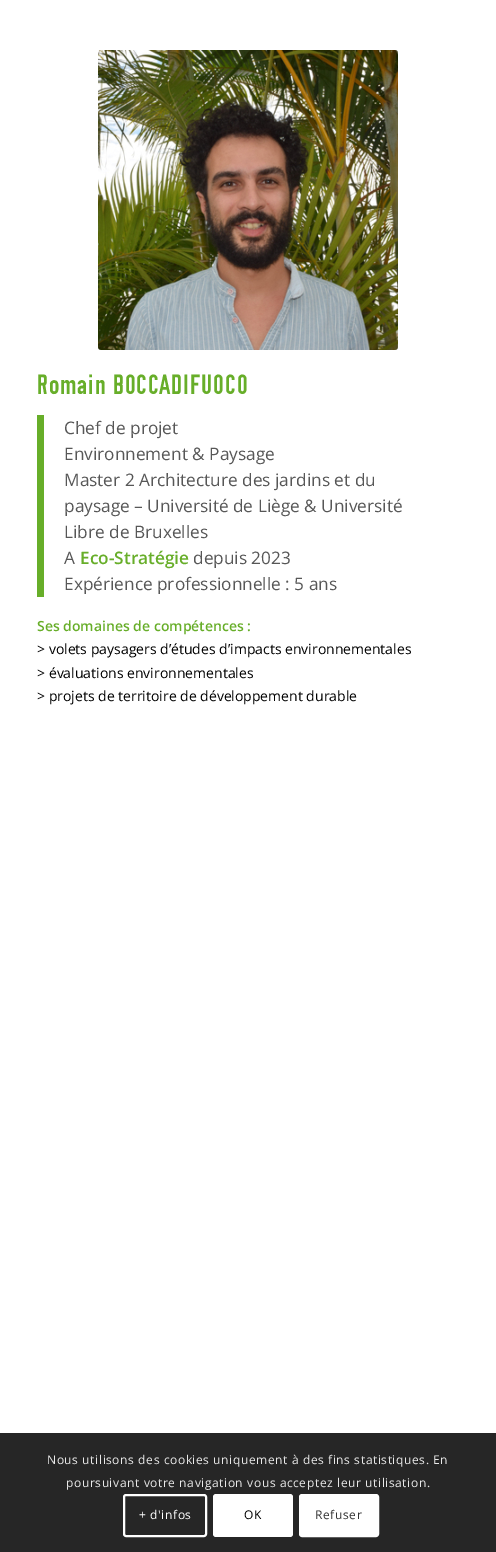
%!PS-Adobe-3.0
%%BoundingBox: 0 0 496 1552
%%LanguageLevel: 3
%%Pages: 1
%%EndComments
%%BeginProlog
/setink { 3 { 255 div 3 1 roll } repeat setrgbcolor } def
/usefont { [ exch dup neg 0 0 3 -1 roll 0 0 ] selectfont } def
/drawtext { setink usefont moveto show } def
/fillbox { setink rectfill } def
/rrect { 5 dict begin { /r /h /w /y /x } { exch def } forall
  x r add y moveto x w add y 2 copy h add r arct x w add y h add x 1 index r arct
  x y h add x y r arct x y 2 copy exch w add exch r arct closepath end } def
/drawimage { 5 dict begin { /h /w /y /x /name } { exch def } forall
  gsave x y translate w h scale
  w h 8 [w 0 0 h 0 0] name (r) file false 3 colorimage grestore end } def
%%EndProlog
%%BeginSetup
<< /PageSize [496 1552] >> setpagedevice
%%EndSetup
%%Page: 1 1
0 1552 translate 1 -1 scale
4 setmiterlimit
0 0 496 1552 255 255 255 fillbox
(assets/img1.rgb) 98 50 300 300 drawimage
/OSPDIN-Medium 28 usefont
103 174 41 setink
37 394 moveto 1 0 (Romain BOCCADIFUOCO) ashow
37 415 7 182 103 174 41 fillbox
(Chef de projet) 64 434 /OpenSans-Regular 17.25 87 87 87 drawtext
(Environnement & Paysage) 64 460 /OpenSans-Regular 17.25 87 87 87 drawtext
(Master 2 Architecture des jardins et du) 64 486 /OpenSans-Regular 17.25 87 87 87 drawtext
(paysage – Université de Liège & Université) 64 512 /OpenSans-Regular 17.25 87 87 87 drawtext
(Libre de Bruxelles) 64 538 /OpenSans-Regular 17.25 87 87 87 drawtext
(A) 64 564 /OpenSans-Regular 17.25 87 87 87 drawtext
(Eco-Stratégie) 80 564 /OpenSans-SemiBold 17.25 103 174 41 drawtext
(depuis 2023) 193 564 /OpenSans-Regular 17.25 87 87 87 drawtext
(Expérience professionnelle : 5 ans) 64 590 /OpenSans-Regular 17.25 87 87 87 drawtext
(Ses domaines de compétences :) 37 631 /OpenSans-SemiBold 14 103 174 41 drawtext
(> volets paysagers d’études d’impacts environnementales) 37 654 /OpenSans-Regular 14 0 0 0 drawtext
(> évaluations environnementales) 37 678 /OpenSans-Regular 14 0 0 0 drawtext
(> projets de territoire de développement durable) 37 701 /OpenSans-Regular 14 0 0 0 drawtext
0 1433 496 119 38 38 38 fillbox
/OpenSans-Regular 12 usefont
233 233 233 setink
47 1464 moveto 0.6 0 (Nous utilisons des cookies uniquement à des fins statistiques. En) ashow
66 1487 moveto 0.6 0 (poursuivant votre navigation vous acceptez leur utilisation.) ashow
255 255 255 setink
2 setlinewidth
124 1495 82 41 2 rrect stroke
139 1519 moveto 0.6 0 (+ d'infos) ashow
213 1494 80 43 3 rrect fill
0 0 0 setink
244 1519 moveto 0.6 0 (OK) ashow
255 255 255 setink
300 1495 78 41 2 rrect gsave fill grestore
stroke
51 51 51 setink
315 1519 moveto 0.6 0 (Refuser) ashow
showpage
%%EOF
